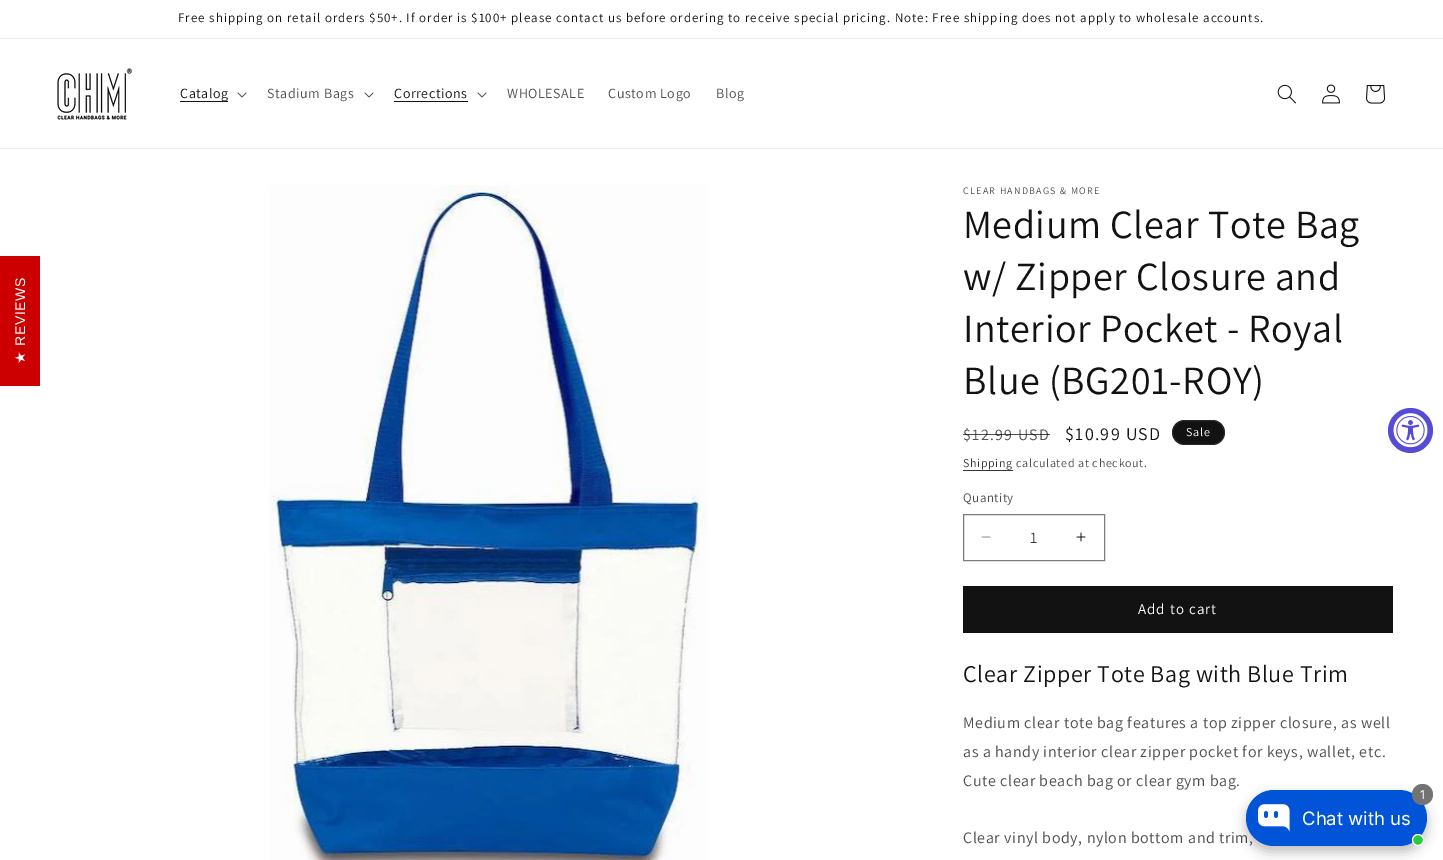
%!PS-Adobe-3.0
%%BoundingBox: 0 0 1443 860
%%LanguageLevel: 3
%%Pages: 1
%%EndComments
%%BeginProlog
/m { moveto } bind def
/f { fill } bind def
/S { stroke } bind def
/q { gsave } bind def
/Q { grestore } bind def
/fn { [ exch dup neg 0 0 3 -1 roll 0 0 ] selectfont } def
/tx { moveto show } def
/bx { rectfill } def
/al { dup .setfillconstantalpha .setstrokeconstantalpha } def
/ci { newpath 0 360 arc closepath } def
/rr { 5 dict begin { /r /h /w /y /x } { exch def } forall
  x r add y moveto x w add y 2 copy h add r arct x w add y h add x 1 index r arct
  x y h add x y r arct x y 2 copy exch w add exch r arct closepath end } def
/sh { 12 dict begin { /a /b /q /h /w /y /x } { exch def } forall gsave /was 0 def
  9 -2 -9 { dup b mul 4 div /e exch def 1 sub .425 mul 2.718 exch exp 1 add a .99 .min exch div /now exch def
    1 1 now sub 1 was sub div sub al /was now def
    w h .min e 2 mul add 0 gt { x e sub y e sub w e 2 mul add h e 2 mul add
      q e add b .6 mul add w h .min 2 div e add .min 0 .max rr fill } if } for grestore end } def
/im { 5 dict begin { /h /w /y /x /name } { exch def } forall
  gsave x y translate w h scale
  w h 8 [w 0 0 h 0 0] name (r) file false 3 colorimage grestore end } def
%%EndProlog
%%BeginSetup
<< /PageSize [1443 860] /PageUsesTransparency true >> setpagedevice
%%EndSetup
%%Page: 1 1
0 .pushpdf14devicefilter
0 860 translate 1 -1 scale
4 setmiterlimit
1 setgray
0 0 1443 860 bx
0.925 setgray
0 38 1443 1 bx
/Assistant-Regular 13 fn
0.071 setgray
178 22 m 1 0 (Free shipping on retail orders $50+. If order is $100+ please contact us before ordering to receive special pricing. Note: Free shipping does not apply to wholesale accounts.) ashow
0.925 setgray
0 148 1443 1 bx
(image0.raw) 57 68 76 52 im
0.071 setgray
180 101 48 1 bx
/Assistant-Regular 14 fn
180 98 m 0.6 0 (Catalog) ashow
(image1.raw) 237 92 10 6 im
0.302 setgray
267 98 m 0.6 0 (Stadium Bags) ashow
(image1.raw) 364 92 10 6 im
0.071 setgray
394 98 m 0.6 0 (Corrections) ashow
394 101 74 1 bx
(image1.raw) 477 92 10 6 im
0.302 setgray
507 98 m 0.6 0 (WHOLESALE) ashow
608 98 m 0.6 0 (Custom Logo) ashow
716 98 m 0.6 0 (Blog) ashow
(image2.raw) 1277 84 19 20 im
(image3.raw) 1322 84 18 20 im
(image4.raw) 1366 85 20 19 im
0.8 0 0 setrgbcolor
0 256 40 130 bx
/LiberationSans-Regular 14 fn
1 setgray
q 25 346 translate -90 rotate 0 0 m 0.6 0 (REVIEWS) ashow Q
/DejaVuSans-Regular 14 fn
q 25 364 translate -90 rotate 0 0 m 0.6 0 (★) ashow Q
(image5.raw) 269 185 439 675 im
/Assistant-Regular 10 fn
0.302 setgray
963 194 m 1.3 0 (CLEAR HANDBAGS & MORE) ashow
/Assistant-Regular 40 fn
0.071 setgray
963 238 m 0.6 0 (Medium Clear Tote Bag) ashow
963 290 m 0.6 0 (w/ Zipper Closure and) ashow
963 342 m 0.6 0 (Interior Pocket - Royal) ashow
963 394 m 0.6 0 (Blue \(BG201-ROY\)) ashow
/Assistant-Regular 16 fn
0.302 setgray
963 440 m 1.3 0 ($12.99 USD) ashow
0.75 al
0.071 setgray
963 434 87 1 bx
/Assistant-Regular 18 fn
1 al
1065 440 m 1.3 0 ($10.99 USD) ashow
1172 420 53 25 12.5 rr f
0.1 al
1 setgray
1172.5 420.5 52 24 12 rr S
/Assistant-Regular 12 fn
1 al
1186 436 m 1 0 (Sale) ashow
0.212 setgray
963 467 m 0.7 0 (Shipping) ashow
963 470 50 1 bx
0.302 setgray
1016 467 m 0.7 0 (calculated at checkout.) ashow
/Assistant-Regular 13 fn
963 502 m 0.5 0 (Quantity) ashow
(image6.raw) 981 536 10 2 im
(image7.raw) 1076 532 10 10 im
0.49 setgray
963.5 514.5 141 46 rectstroke
/Assistant-Regular 16 fn
0.212 setgray
(1) 1030 543 tx
0.071 setgray
963 586 430 47 bx
/Assistant-Regular 15 fn
1 setgray
1138 614 m 1 0 (Add to cart) ashow
/Assistant-Regular 24 fn
0.071 setgray
963 682 m 0.6 0 (Clear Zipper Tote Bag with Blue Trim) ashow
/Assistant-Regular 16 fn
0.302 setgray
963 728 m 0.6 0 (Medium clear tote bag features a top zipper closure, as well) ashow
963 757 m 0.6 0 (as a handy interior clear zipper pocket for keys, wallet, etc.) ashow
963 786 m 0.6 0 (Cute clear beach bag or clear gym bag.) ashow
963 843 m 0.6 0 (Clear vinyl body, nylon bottom and trim,) ashow
0.341 0.298 0.835 setrgbcolor
1410.5 430.5 22.5 ci f
(image8.raw) 1393 413 35 35 im
0 setgray
1246 796 181 56 28 6 0.25 sh
0.004 0.329 0.843 setrgbcolor
1246 790 181 56 28 rr f
0.451 setgray
1422.5 794.5 10.5 ci f
/Inter-Regular 12 fn
1 setgray
1420 799 m 0.6 0 (1) ashow
(image9.raw) 1258 804 32 28 im
/Inter-Regular 18.5 fn
(Chat with us) 1302 825 tx
0.153 0.792 0.251 setrgbcolor
1418 840 5.5 ci q f Q
1 setgray
S
.poppdf14devicefilter showpage
%%EOF
